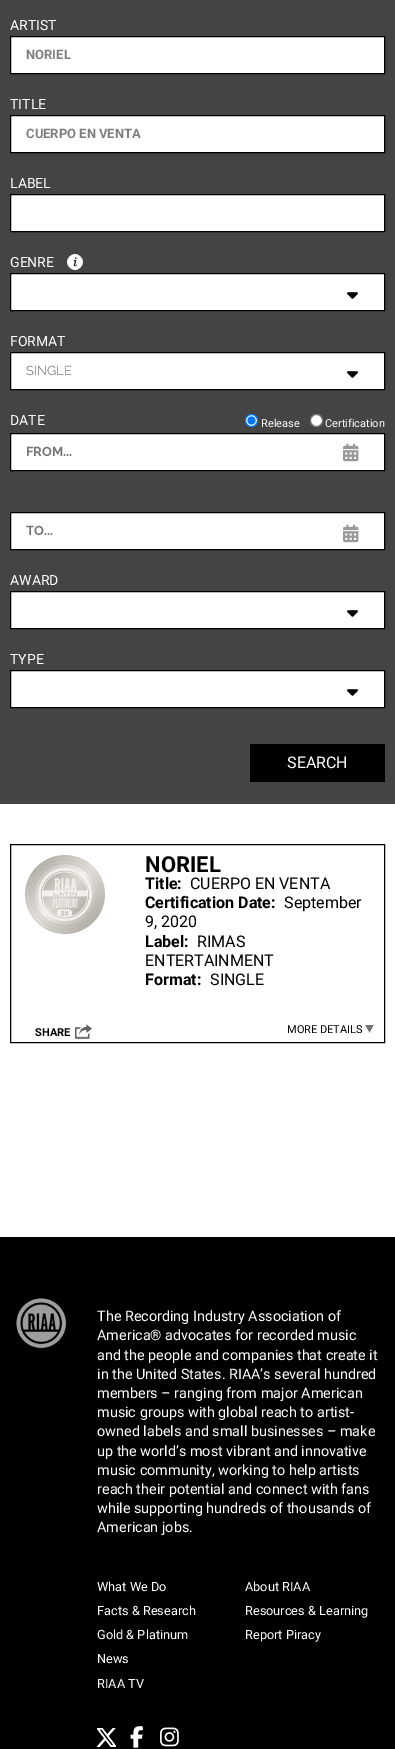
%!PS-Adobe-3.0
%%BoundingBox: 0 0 395 1749
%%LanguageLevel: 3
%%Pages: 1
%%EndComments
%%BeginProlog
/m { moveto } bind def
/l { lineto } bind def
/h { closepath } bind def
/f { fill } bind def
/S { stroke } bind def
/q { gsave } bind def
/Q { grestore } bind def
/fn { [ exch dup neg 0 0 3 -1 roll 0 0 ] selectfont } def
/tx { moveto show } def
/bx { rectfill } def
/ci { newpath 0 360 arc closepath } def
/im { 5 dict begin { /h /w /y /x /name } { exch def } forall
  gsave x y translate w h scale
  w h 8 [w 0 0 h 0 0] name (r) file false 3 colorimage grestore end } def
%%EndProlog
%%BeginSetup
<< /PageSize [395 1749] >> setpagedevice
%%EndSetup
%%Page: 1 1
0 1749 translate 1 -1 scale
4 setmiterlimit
1 setgray
0 0 395 1749 bx
0.271 0.267 0.267 setrgbcolor
0 0 395 804 bx
/Roboto-Regular 14 fn
1 setgray
(ARTIST) 10 30 tx
10.5 36.5 m 384.5 36.5 l 384.5 73.5 l 10.5 73.5 l h q f Q
0 setgray
S
/Roboto-Bold 13 fn
0.498 setgray
(NORIEL) 26 59 tx
/Roboto-Regular 14 fn
1 setgray
(TITLE) 10 109 tx
10.5 115.5 m 384.5 115.5 l 384.5 152.5 l 10.5 152.5 l h q f Q
0 setgray
S
/Roboto-Bold 13 fn
0.498 setgray
(CUERPO EN VENTA) 26 138 tx
/Roboto-Regular 14 fn
1 setgray
(LABEL) 10 188 tx
10.5 194.5 m 384.5 194.5 l 384.5 231.5 l 10.5 231.5 l h q f Q
0 setgray
S
1 setgray
(GENRE) 10 267 tx
(image0.raw) 67 254 16 16 im
10.5 273.5 m 384.5 273.5 l 384.5 310.5 l 10.5 310.5 l h q f Q
0 setgray
S
(image1.raw) 347 292 11 7 im
1 setgray
(FORMAT) 10 346 tx
10.5 352.5 m 384.5 352.5 l 384.5 389.5 l 10.5 389.5 l h q f Q
0 setgray
S
/Raleway-Regular 13 fn
0.498 setgray
(SINGLE) 26 375 tx
(image1.raw) 347 371 11 7 im
/Roboto-Regular 14 fn
1 setgray
(DATE) 10 425 tx
251.5 420.5 6 ci q f Q
0 0.459 1 setrgbcolor
S
251.5 420.5 4 ci f
/Roboto-Regular 11 fn
1 setgray
(Release) 261 427 tx
316.5 420.5 6 ci q f Q
0.463 setgray
S
1 setgray
(Certification) 325 427 tx
10.5 433.5 m 384.5 433.5 l 384.5 470.5 l 10.5 470.5 l h q f Q
0 setgray
S
/Raleway-Bold 13 fn
0.459 setgray
(FROM...) 26 456 tx
(image2.raw) 343 443 16 19 im
1 setgray
10.5 512.5 m 384.5 512.5 l 384.5 549.5 l 10.5 549.5 l h q f Q
0 setgray
S
0.459 setgray
(TO...) 26 535 tx
(image2.raw) 343 524 16 19 im
/Roboto-Regular 14 fn
1 setgray
(AWARD) 10 585 tx
10.5 591.5 m 384.5 591.5 l 384.5 628.5 l 10.5 628.5 l h q f Q
0 setgray
S
(image1.raw) 347 610 11 7 im
1 setgray
(TYPE) 10 664 tx
10.5 670.5 m 384.5 670.5 l 384.5 707.5 l 10.5 707.5 l h q f Q
0 setgray
S
(image1.raw) 347 689 11 7 im
250 744 135 38 bx
/Roboto-Regular 16 fn
1 setgray
(SEARCH) 287 768 tx
0 setgray
10.5 844.5 374 198 rectstroke
(image3.raw) 25 855 80 79 im
/Roboto-Bold 22 fn
(NORIEL) 145 872 tx
/Roboto-Bold 16 fn
(Title:) 145 889 tx
/Roboto-Regular 16 fn
(CUERPO EN VENTA) 190 889 tx
/Roboto-Bold 16 fn
(Certification Date:) 145 908 tx
/Roboto-Regular 16 fn
(September) 284 908 tx
(9, 2020) 145 927 tx
/Roboto-Bold 16 fn
(Label:) 145 947 tx
/Roboto-Regular 16 fn
(RIMAS) 197 947 tx
(ENTERTAINMENT) 145 966 tx
/Roboto-Bold 16 fn
(Format:) 145 985 tx
/Roboto-Regular 16 fn
(SINGLE) 210 985 tx
/Roboto-Bold 11 fn
(SHARE) 35 1036 tx
(image4.raw) 75 1024 17 15 im
/Roboto-Regular 11 fn
(MORE DETAILS) 287 1033 tx
(image5.raw) 365 1025 9 8 im
0 1237 395 512 bx
(image6.raw) 16 1298 51 51 im
/Roboto-Regular 14.4 fn
1 setgray
(The Recording Industry Association of) 97 1321 tx
(America® advocates for recorded music) 97 1340 tx
(and the people and companies that create it) 97 1360 tx
(in the United States. RIAA’s several hundred) 97 1379 tx
(members – ranging from major American) 97 1398 tx
(music groups with global reach to artist-) 97 1417 tx
(owned labels and small businesses – make) 97 1436 tx
(up the world’s most vibrant and innovative) 97 1456 tx
(music community, working to help artists) 97 1475 tx
(reach their potential and connect with fans) 97 1494 tx
(while supporting hundreds of thousands of) 97 1513 tx
(American jobs.) 97 1532 tx
/Roboto-Regular 12.75 fn
(What We Do) 97 1591 tx
(Facts & Research) 97 1615 tx
(Gold & Platinum) 97 1639 tx
(News) 97 1663 tx
(RIAA TV) 97 1688 tx
(image7.raw) 97 1728 19 19 im
(image8.raw) 130 1726 13 22 im
(image9.raw) 160 1727 19 20 im
(About RIAA) 245 1591 tx
(Resources & Learning) 245 1615 tx
(Report Piracy) 245 1639 tx
showpage
%%EOF
